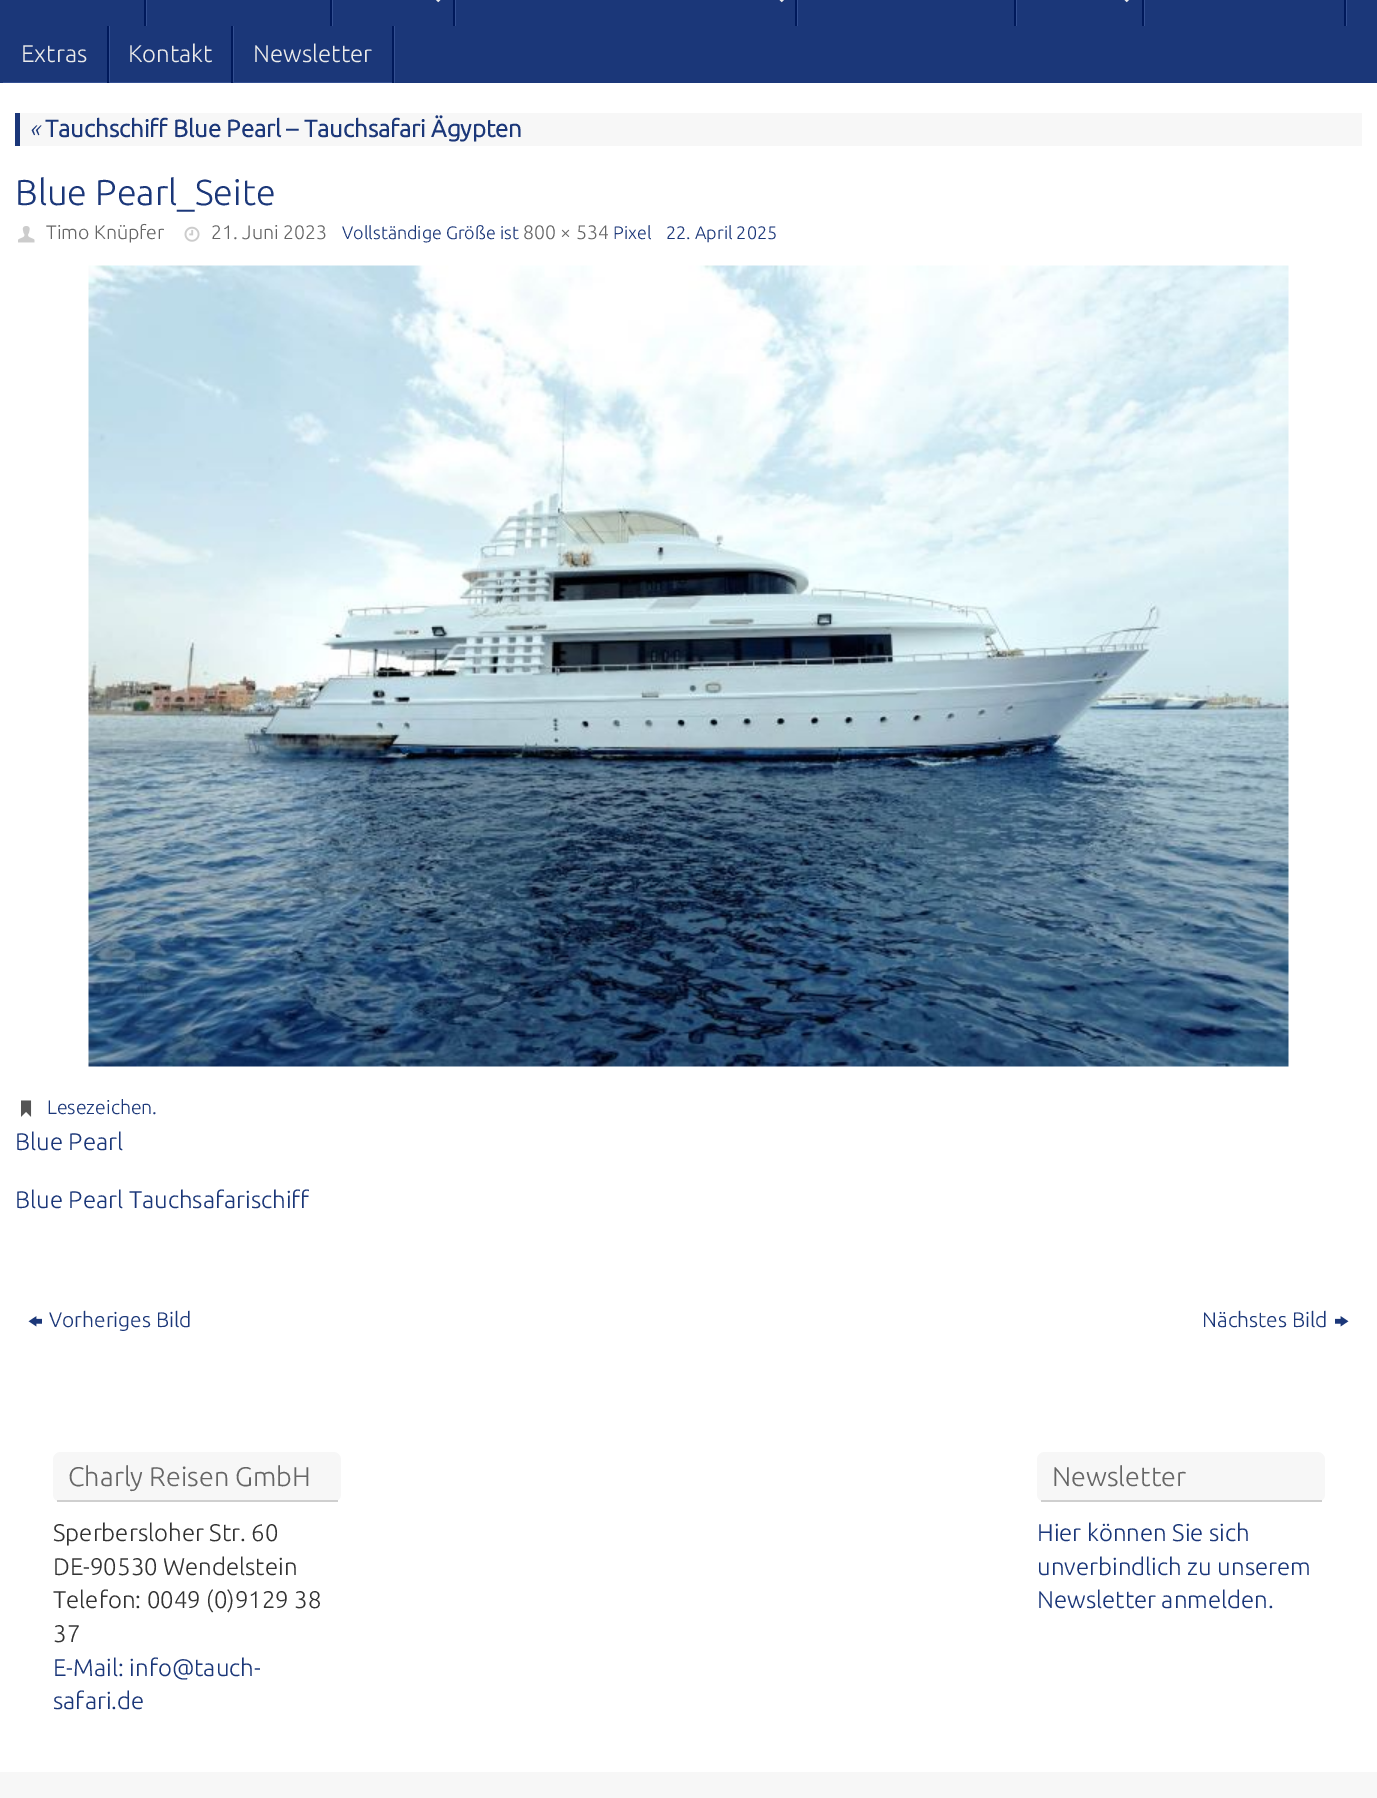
%!PS-Adobe-3.0
%%BoundingBox: 0 0 1377 1798
%%LanguageLevel: 3
%%Pages: 1
%%EndComments
%%BeginProlog
/m { moveto } bind def
/l { lineto } bind def
/h { closepath } bind def
/f { fill } bind def
/fn { [ exch dup neg 0 0 3 -1 roll 0 0 ] selectfont } def
/tx { moveto show } def
/bx { rectfill } def
/rr { 5 dict begin { /r /h /w /y /x } { exch def } forall
  x r add y moveto x w add y 2 copy h add r arct x w add y h add x 1 index r arct
  x y h add x y r arct x y 2 copy exch w add exch r arct closepath end } def
/im { 5 dict begin { /h /w /y /x /name } { exch def } forall
  gsave x y translate w h scale
  w h 8 [w 0 0 h 0 0] name (r) file false 3 colorimage grestore end } def
%%EndProlog
%%BeginSetup
<< /PageSize [1377 1798] >> setpagedevice
%%EndSetup
%%Page: 1 1
0 1798 translate 1 -1 scale
4 setmiterlimit
0.106 0.216 0.475 setrgbcolor
0 0 1377 1798 bx
0.2 0.31 0.569 setrgbcolor
3 26 m 147 26 l 147 -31 l 146 -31 l 146 26 l h f
0 0.098 0.357 setrgbcolor
144 0 2 26 bx
0.2 0.31 0.569 setrgbcolor
147 26 m 333 26 l 333 -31 l 332 -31 l 332 26 l h f
0 0.098 0.357 setrgbcolor
330 0 2 26 bx
0.2 0.31 0.569 setrgbcolor
333 26 m 456 26 l 456 -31 l 454 -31 l 454 26 l h f
0 0.098 0.357 setrgbcolor
453 0 2 26 bx
(image0.raw) 436 0 5 3 im
0.2 0.31 0.569 setrgbcolor
456 26 m 798 26 l 798 -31 l 796 -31 l 796 26 l h f
0 0.098 0.357 setrgbcolor
795 0 2 26 bx
(image1.raw) 779 0 5 3 im
0.2 0.31 0.569 setrgbcolor
798 26 m 1017 26 l 1017 -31 l 1016 -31 l 1016 26 l h f
0 0.098 0.357 setrgbcolor
1014 0 2 26 bx
0.2 0.31 0.569 setrgbcolor
1017 26 m 1145 26 l 1145 -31 l 1143 -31 l 1143 26 l h f
0 0.098 0.357 setrgbcolor
1142 0 2 26 bx
(image1.raw) 1124 0 5 3 im
0.2 0.31 0.569 setrgbcolor
1145 26 m 1347 26 l 1347 -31 l 1346 -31 l 1346 26 l h f
0 0.098 0.357 setrgbcolor
1344 0 2 26 bx
0.2 0.31 0.569 setrgbcolor
3 82 m 3 83 l 110 83 l 110 26 l 108 26 l 108 82 l h f
0 0.098 0.357 setrgbcolor
107 26 2 57 bx
/Ubuntu-Light 24 fn
0.918 setgray
(Extras) 21 62 tx
0.2 0.31 0.569 setrgbcolor
110 82 m 110 83 l 234 83 l 234 26 l 232 26 l 232 82 l h f
0 0.098 0.357 setrgbcolor
231 26 2 57 bx
0.918 setgray
(Kontakt) 128 62 tx
0.2 0.31 0.569 setrgbcolor
234 82 m 234 83 l 395 83 l 395 26 l 393 26 l 393 82 l h f
0 0.098 0.357 setrgbcolor
392 26 2 57 bx
0.918 setgray
(Newsletter) 253 62 tx
1 setgray
0 83 1377 1689 bx
0.969 setgray
20 113 1342 33 bx
0.106 0.216 0.475 setrgbcolor
15 113 5 33 bx
/Ubuntu-LightItalic 24 fn
(«) 29 137 tx
/Ubuntu-Bold 24 fn
(Tauchschiff Blue Pearl – Tauchsafari Ägypten) 45 137 tx
/Ubuntu-Light 36 fn
(Blue Pearl_Seite) 15 205 tx
(image2.raw) 18 226 17 17 im
/Ubuntu-Light 19.5 fn
0.4 setgray
(Timo Knüpfer) 46 239 tx
(image3.raw) 184 226 16 16 im
(21. Juni 2023) 211 239 tx
/Ubuntu-Light 18 fn
0.106 0.216 0.475 setrgbcolor
(Vollständige Größe ist) 342 239 tx
/Ubuntu-Light 19.5 fn
0.4 setgray
(800 × 534) 523 239 tx
/Ubuntu-Light 18 fn
0.106 0.216 0.475 setrgbcolor
(Pixel) 613 239 tx
(22. April 2025) 666 239 tx
(image4.raw) 88 265 1201 802 im
(image5.raw) 21 1100 11 17 im
/Ubuntu-Light 19.5 fn
(Lesezeichen.) 47 1114 tx
/Ubuntu-Light 24 fn
(Blue Pearl) 15 1150 tx
(Blue Pearl Tauchsafarischiff) 15 1208 tx
(image6.raw) 28 1316 14 11 im
/Ubuntu-Light 21 fn
(Vorheriges Bild) 49 1327 tx
(Nächstes Bild) 1202 1327 tx
(image7.raw) 1335 1316 14 11 im
0.969 setgray
53 1452 288 50 8 rr f
0.812 setgray
57 1500 281 2 bx
/Ubuntu-Light 27 fn
0.4 setgray
(Charly Reisen GmbH) 68 1486 tx
/Ubuntu-Light 24 fn
0.2 setgray
(Sperbersloher Str. 60) 53 1541 tx
(DE-90530 Wendelstein) 53 1575 tx
(Telefon: 0049 \(0\)9129 38) 53 1608 tx
(37) 53 1642 tx
0.106 0.216 0.475 setrgbcolor
(E-Mail: info@tauch-) 53 1676 tx
(safari.de) 53 1709 tx
0.969 setgray
1037 1452 288 50 8 rr f
0.812 setgray
1041 1500 281 2 bx
/Ubuntu-Light 27 fn
0.4 setgray
(Newsletter) 1052 1486 tx
/Ubuntu-Light 24 fn
0.106 0.216 0.475 setrgbcolor
(Hier können Sie sich) 1037 1541 tx
(unverbindlich zu unserem) 1037 1575 tx
(Newsletter anmelden.) 1037 1608 tx
0.969 setgray
0 1772 1377 26 bx
showpage
%%EOF
